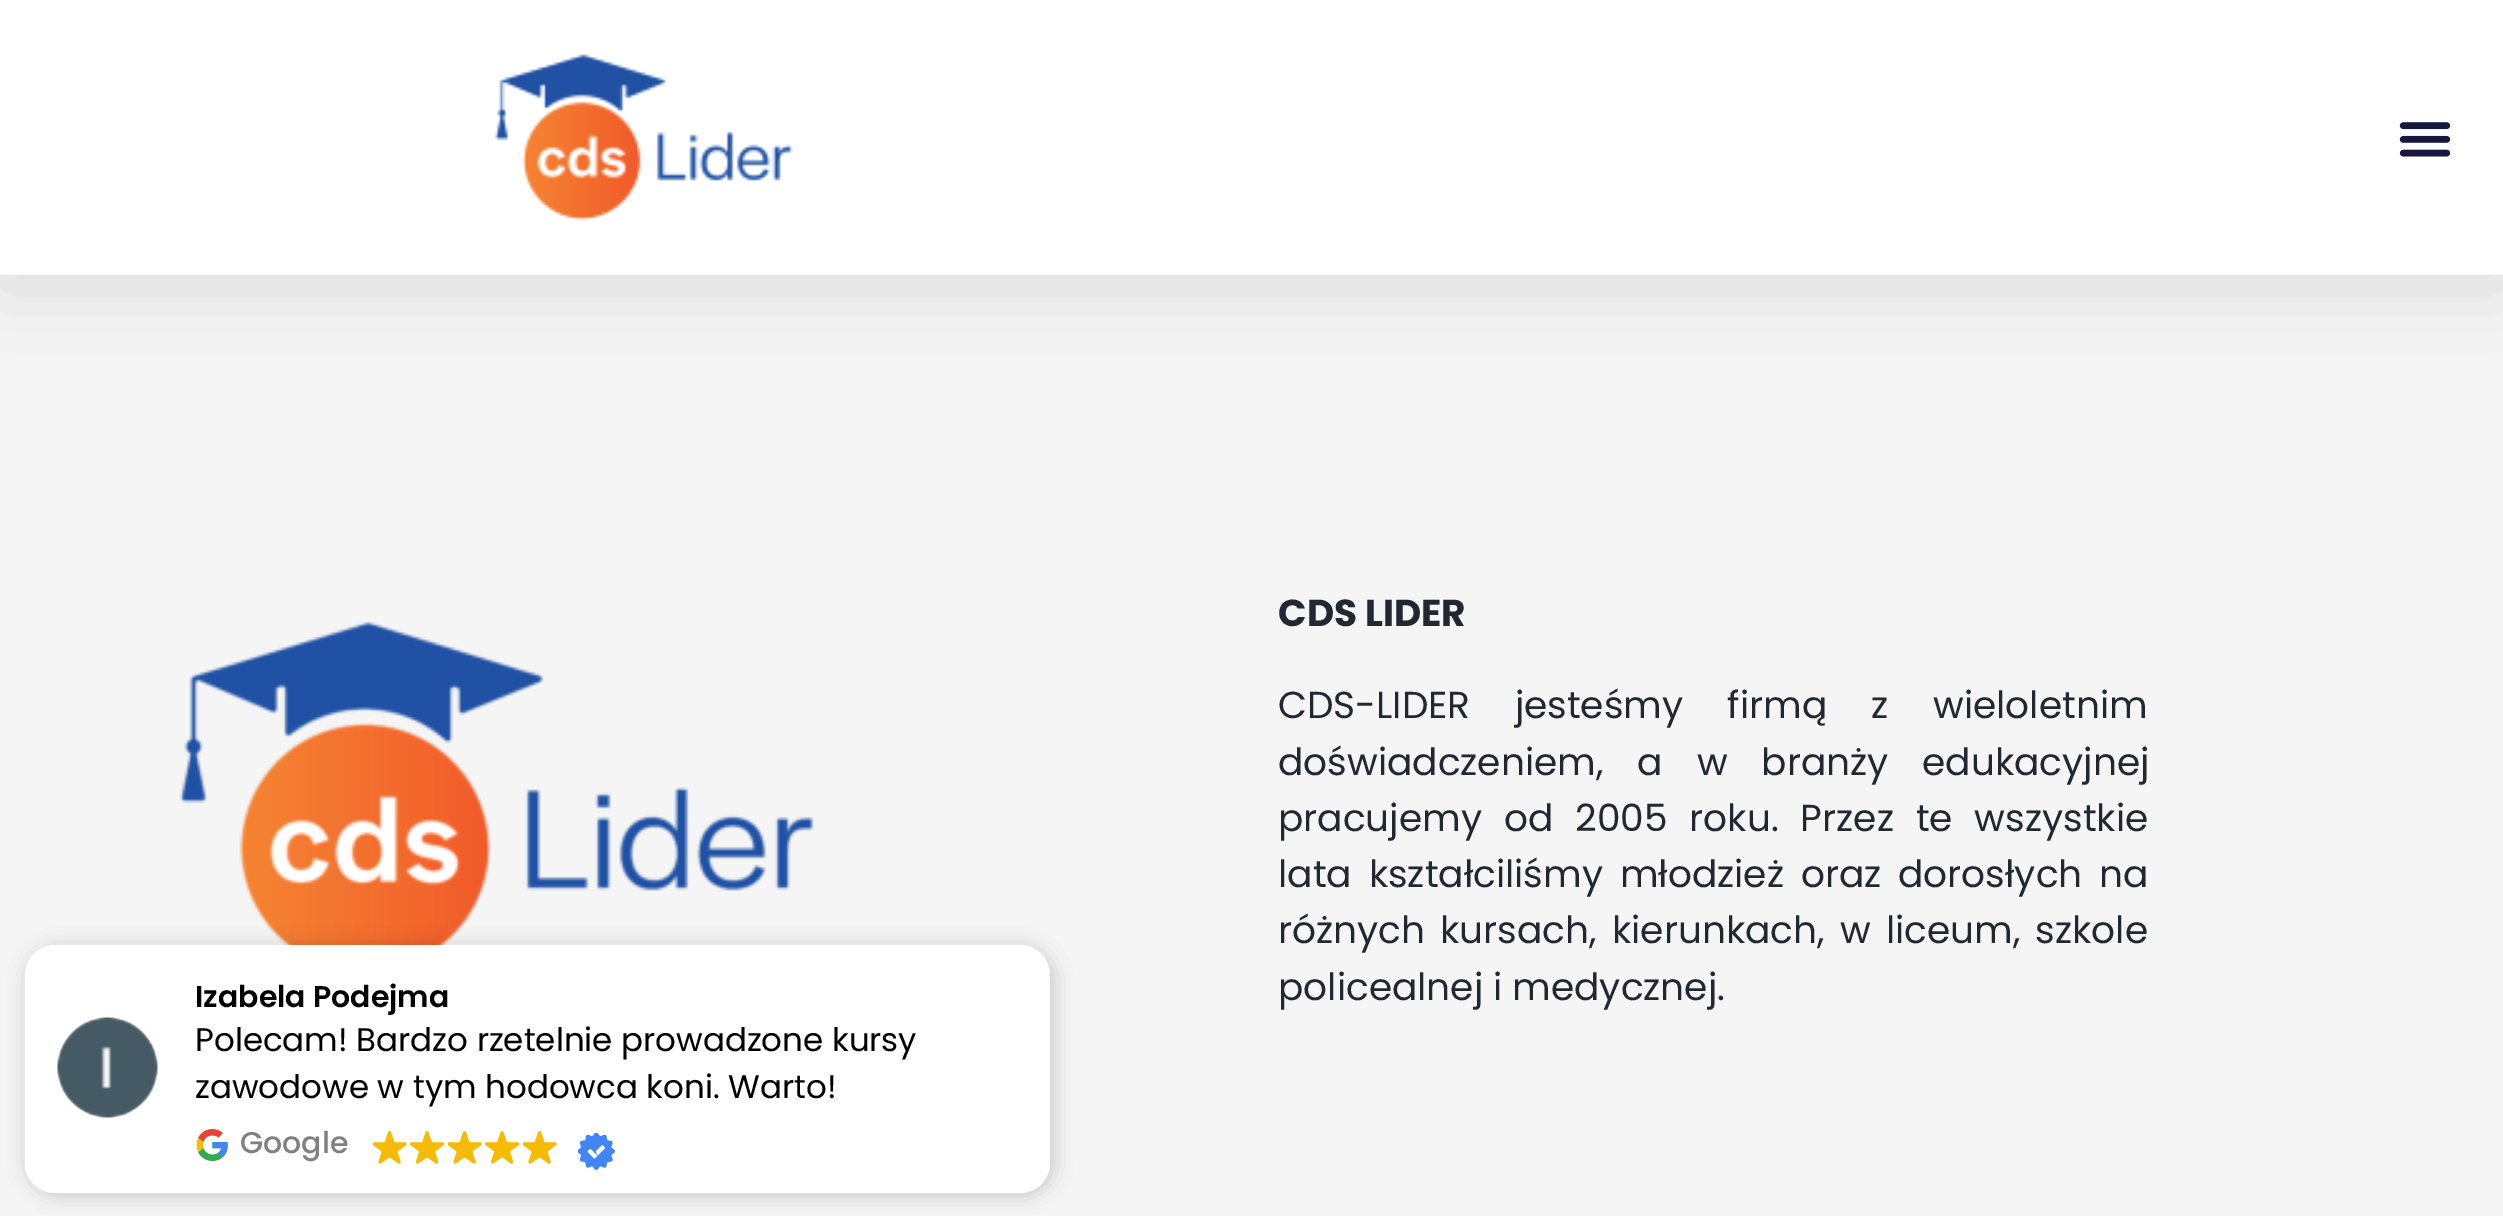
%!PS-Adobe-3.0
%%BoundingBox: 0 0 2503 1216
%%LanguageLevel: 3
%%Pages: 1
%%EndComments
%%BeginProlog
/m { moveto } bind def
/f { fill } bind def
/fn { [ exch dup neg 0 0 3 -1 roll 0 0 ] selectfont } def
/tx { moveto show } def
/bx { rectfill } def
/al { dup .setfillconstantalpha .setstrokeconstantalpha } def
/rr { 5 dict begin { /r /h /w /y /x } { exch def } forall
  x r add y moveto x w add y 2 copy h add r arct x w add y h add x 1 index r arct
  x y h add x y r arct x y 2 copy exch w add exch r arct closepath end } def
/sh { 12 dict begin { /a /b /q /h /w /y /x } { exch def } forall gsave /was 0 def
  9 -2 -9 { dup b mul 4 div /e exch def 1 sub .425 mul 2.718 exch exp 1 add a .99 .min exch div /now exch def
    1 1 now sub 1 was sub div sub al /was now def
    w h .min e 2 mul add 0 gt { x e sub y e sub w e 2 mul add h e 2 mul add
      q e add b .6 mul add w h .min 2 div e add .min 0 .max rr fill } if } for grestore end } def
/im { 5 dict begin { /h /w /y /x /name } { exch def } forall
  gsave x y translate w h scale
  w h 8 [w 0 0 h 0 0] name (r) file false 3 colorimage grestore end } def
%%EndProlog
%%BeginSetup
<< /PageSize [2503 1216] /PageUsesTransparency true >> setpagedevice
%%EndSetup
%%Page: 1 1
0 .pushpdf14devicefilter
0 1216 translate 1 -1 scale
4 setmiterlimit
0.961 setgray
0 0 2503 1216 bx
0 setgray
0 13 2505 275 0 37.5 0.1 sh
1 setgray
0 0 2503 275 bx
(image0.raw) 494 54 299 167 im
(image1.raw) 2399 122 52 35 im
(image2.raw) 179 621 635 324 im
/Poppins-Bold 37.5 fn
0.129 0.157 0.196 setrgbcolor
(CDS LIDER) 1278 626 tx
/Poppins-Regular 37.5 fn
1278 718 m 34.5 0 32 (CDS-LIDER jesteśmy firmą z wieloletnim) widthshow
1278 775 m 24 0 32 (doświadczeniem, a w branży edukacyjnej) widthshow
1278 831 m 12 0 32 (pracujemy od 2005 roku. Przez te wszystkie) widthshow
1278 887 m 7 0 32 (lata kształciliśmy młodzież oraz dorosłych na) widthshow
1278 943 m 5.25 0 32 (różnych kursach, kierunkach, w liceum, szkole) widthshow
(policealnej i medycznej.) 1278 1000 tx
0 setgray
28 948 1025 247 30 10 0.2 sh
1 setgray
25 945 1025 248 30 rr f
(image3.raw) 57 1017 101 101 im
/Poppins-SemiBold 30 fn
0 setgray
(Izabela Podejma) 195 1007 tx
/Poppins-Regular 32.5 fn
(Polecam! Bardzo rzetelnie prowadzone kursy) 195 1051 tx
(zawodowe w tym hodowca koni. Warto!) 195 1098 tx
(image4.raw) 196 1129 32 32 im
/Poppins-Medium 30 fn
0.502 setgray
(Google) 240 1153 tx
(image5.raw) 373 1131 34 33 im
(image6.raw) 410 1131 35 33 im
(image5.raw) 448 1131 34 33 im
(image6.raw) 485 1131 35 33 im
(image5.raw) 523 1131 34 33 im
(image7.raw) 578 1133 37 37 im
.poppdf14devicefilter showpage
%%EOF
